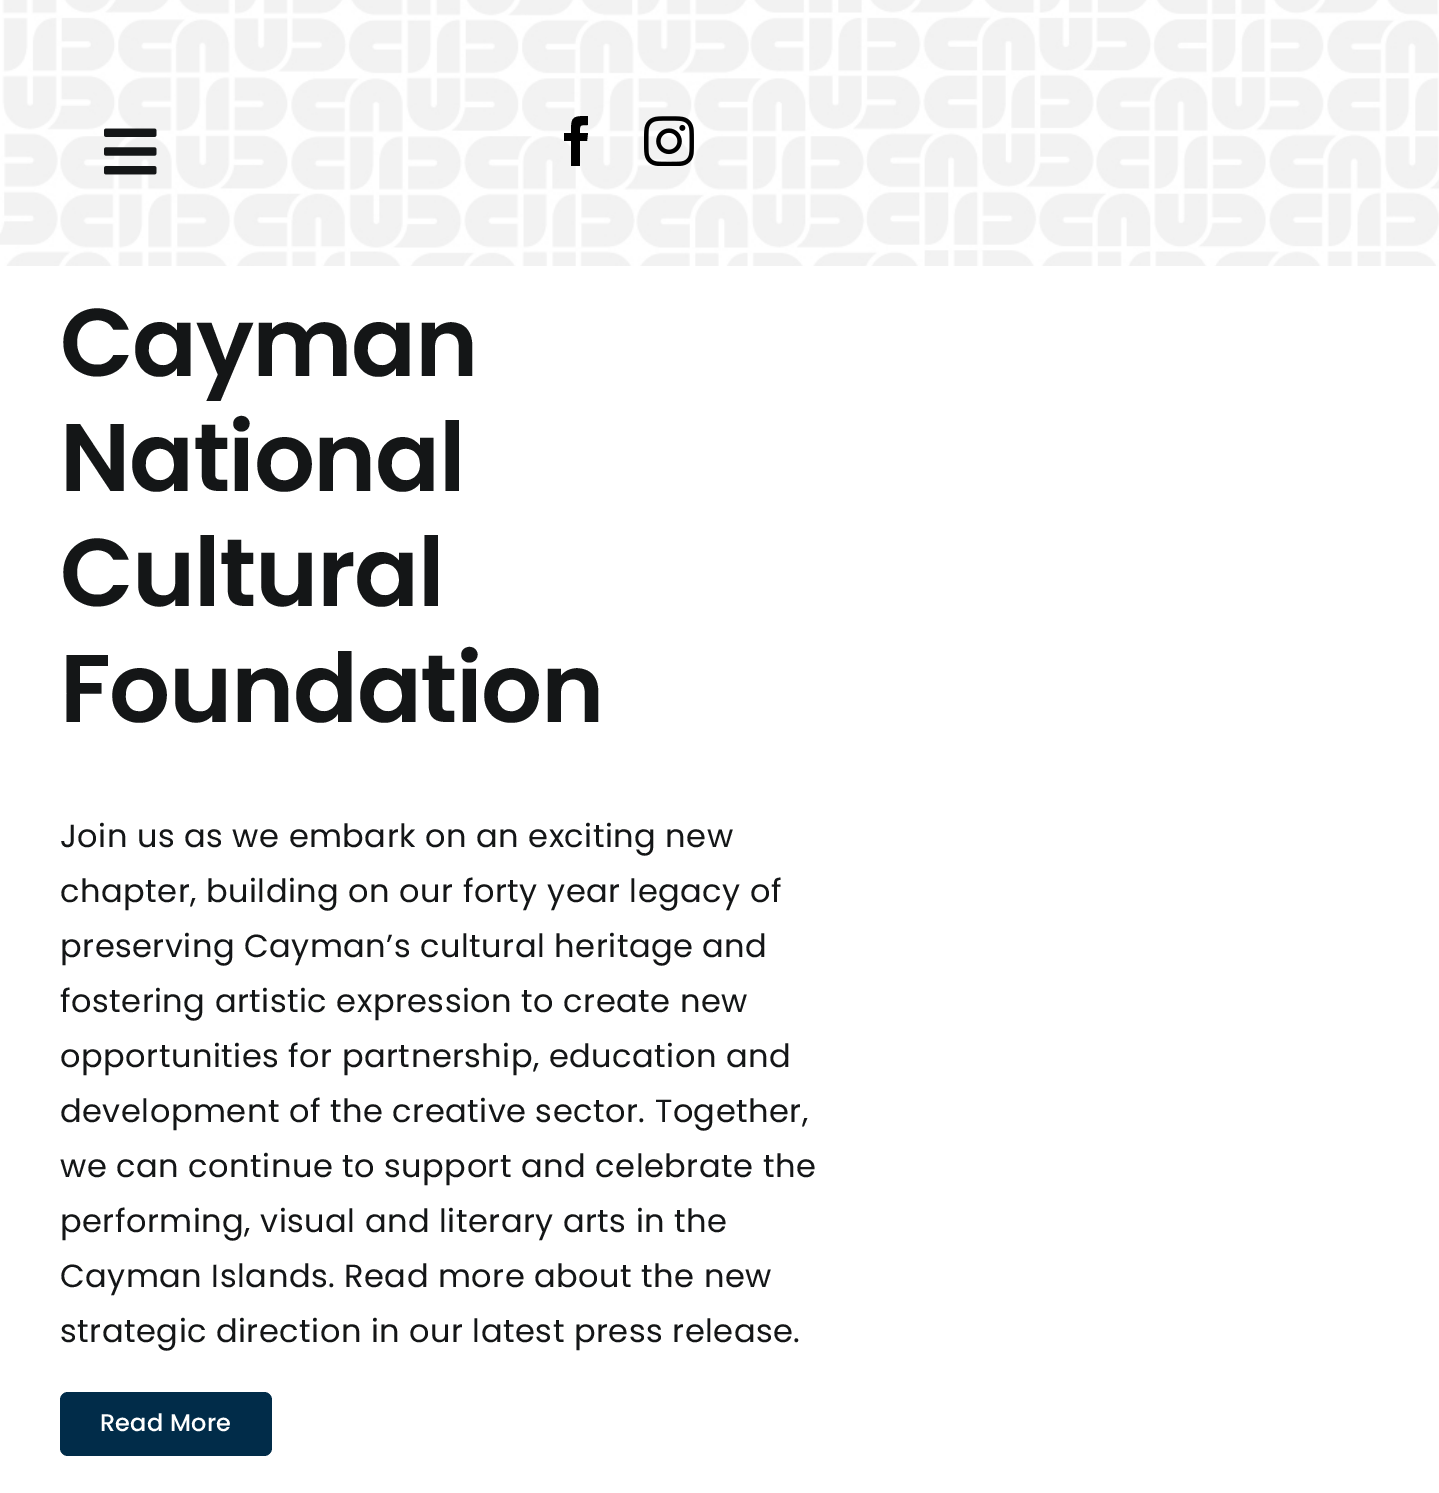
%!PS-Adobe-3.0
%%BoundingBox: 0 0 1439 1493
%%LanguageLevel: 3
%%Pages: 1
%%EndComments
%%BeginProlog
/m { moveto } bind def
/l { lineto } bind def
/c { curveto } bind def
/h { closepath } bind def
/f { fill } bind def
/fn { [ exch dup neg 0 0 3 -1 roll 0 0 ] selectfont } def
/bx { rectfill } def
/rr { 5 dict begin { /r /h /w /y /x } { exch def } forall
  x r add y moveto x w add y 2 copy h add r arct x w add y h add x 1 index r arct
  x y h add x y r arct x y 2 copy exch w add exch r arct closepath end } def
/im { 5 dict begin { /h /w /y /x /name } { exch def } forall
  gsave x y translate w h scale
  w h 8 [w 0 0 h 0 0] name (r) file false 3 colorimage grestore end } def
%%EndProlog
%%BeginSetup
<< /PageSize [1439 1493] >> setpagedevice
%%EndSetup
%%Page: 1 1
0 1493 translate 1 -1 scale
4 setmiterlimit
1 setgray
0 0 1439 1493 bx
(image0.raw) 0 0 1439 266 im
(image1.raw) 104 128 53 47 im
0 setgray
580 166 m 571 166 l 571 141 l 564 141 l 564 133 l 571 133 l 571 117 572 116 588 116 c 588 125 l 579 125 580 125 580 133 c 588 133 l 587 141 l 580 141 l h f
(image2.raw) 644 116 50 50 im
/Poppins-SemiBold 96 fn
0.078 0.086 0.09 setrgbcolor
60 376 m -1.5 0 (Cayman) ashow
60 491 m -1.5 0 (National) ashow
60 606 m -1.5 0 (Cultural) ashow
60 722 m -1.5 0 (Foundation) ashow
/Poppins-Regular 32 fn
60 847 m 0.5 0 (Join us as we embark on an exciting new) ashow
60 902 m 0.5 0 (chapter, building on our forty year legacy of) ashow
60 957 m 0.5 0 (preserving Cayman’s cultural heritage and) ashow
60 1012 m 0.5 0 (fostering artistic expression to create new) ashow
60 1067 m 0.5 0 (opportunities for partnership, education and) ashow
60 1122 m 0.5 0 (development of the creative sector. Together,) ashow
60 1177 m 0.5 0 (we can continue to support and celebrate the) ashow
60 1232 m 0.5 0 (performing, visual and literary arts in the) ashow
60 1287 m 0.5 0 (Cayman Islands. Read more about the new) ashow
60 1342 m 0.5 0 (strategic direction in our latest press release.) ashow
0.004 0.173 0.286 setrgbcolor
60 1392 212 64 8 rr f
/Poppins-Medium 24 fn
1 setgray
100 1431 m 0.25 0 (Read More) ashow
showpage
%%EOF
